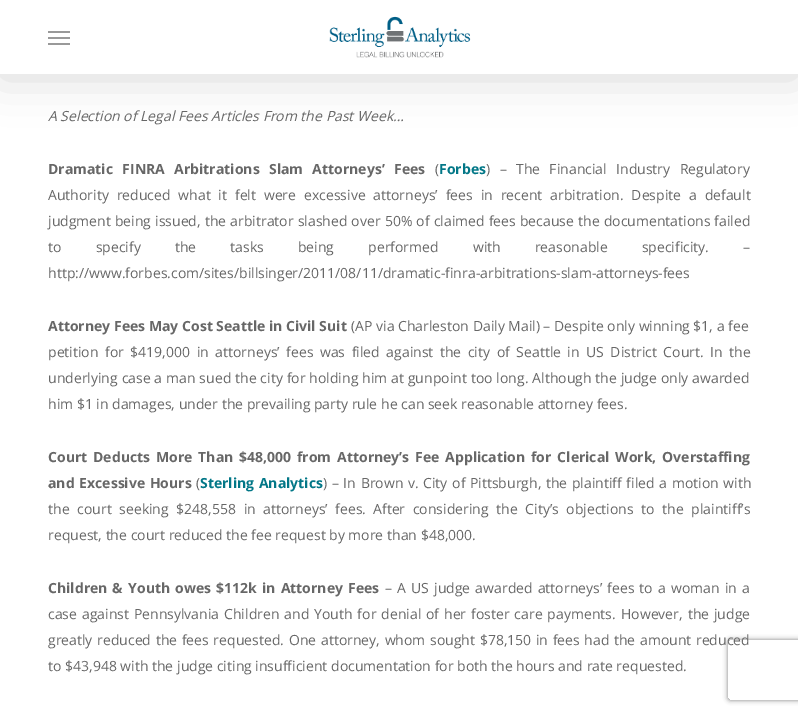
%!PS-Adobe-3.0
%%BoundingBox: 0 0 798 714
%%LanguageLevel: 3
%%Pages: 1
%%EndComments
%%BeginProlog
/m { moveto } bind def
/l { lineto } bind def
/c { curveto } bind def
/h { closepath } bind def
/q { gsave } bind def
/Q { grestore } bind def
/fn { [ exch dup neg 0 0 3 -1 roll 0 0 ] selectfont } def
/tx { moveto show } def
/bx { rectfill } def
/al { dup .setfillconstantalpha .setstrokeconstantalpha } def
/rr { 5 dict begin { /r /h /w /y /x } { exch def } forall
  x r add y moveto x w add y 2 copy h add r arct x w add y h add x 1 index r arct
  x y h add x y r arct x y 2 copy exch w add exch r arct closepath end } def
/sh { 12 dict begin { /a /b /q /h /w /y /x } { exch def } forall gsave /was 0 def
  9 -2 -9 { dup b mul 4 div /e exch def 1 sub .425 mul 2.718 exch exp 1 add a .99 .min exch div /now exch def
    1 1 now sub 1 was sub div sub al /was now def
    w h .min e 2 mul add 0 gt { x e sub y e sub w e 2 mul add h e 2 mul add
      q e add b .6 mul add w h .min 2 div e add .min 0 .max rr fill } if } for grestore end } def
/im { 5 dict begin { /h /w /y /x /name } { exch def } forall
  gsave x y translate w h scale
  w h 8 [w 0 0 h 0 0] name (r) file false 3 colorimage grestore end } def
%%EndProlog
%%BeginSetup
<< /PageSize [798 714] /PageUsesTransparency true >> setpagedevice
%%EndSetup
%%Page: 1 1
0 .pushpdf14devicefilter
0 714 translate 1 -1 scale
4 setmiterlimit
1 setgray
0 0 798 714 bx
0 setgray
0 3 798 74 0 22.5 0.15 sh
1 setgray
0 0 798 74 bx
0.6 setgray
48 31 22 2 bx
48 43 22 2 bx
48 37 22 2 bx
(image0.raw) 329 16 142 42 im
/OpenSans-Italic 14 fn
0.404 setgray
(A Selection of Legal Fees Articles From the Past Week…) 48 121 tx
/OpenSans-Bold 14 fn
48 174 m 5.75 0 32 (Dramatic FINRA Arbitrations Slam Attorneys’ Fees) widthshow
/OpenSans-Regular 14 fn
(\() 435 174 tx
/OpenSans-Bold 14 fn
0.008 0.467 0.529 setrgbcolor
(Forbes) 439 174 tx
/OpenSans-Regular 14 fn
0.404 setgray
486 174 m 5.75 0 32 (\) – The Financial Industry Regulatory) widthshow
48 200 m 4.25 0 32 (Authority reduced what it felt were excessive attorneys’ fees in recent arbitration. Despite a default) widthshow
48 226 m 0.5 0 32 (judgment being issued, the arbitrator slashed over 50% of claimed fees because the documentations failed) widthshow
48 252 m 30.5 0 32 (to specify the tasks being performed with reasonable specificity. –) widthshow
(http://www.forbes.com/sites/billsinger/2011/08/11/dramatic-finra-arbitrations-slam-attorneys-fees) 48 278 tx
/OpenSans-Bold 14 fn
(Attorney Fees May Cost Seattle in Civil Suit) 48 331 tx
/OpenSans-Regular 14 fn
(\(AP via Charleston Daily Mail\) – Despite only winning $1, a fee) 351 331 tx
48 357 m 2.9 0 32 (petition for $419,000 in attorneys’ fees was filed against the city of Seattle in US District Court. In the) widthshow
48 383 m 0.3 0 32 (underlying case a man sued the city for holding him at gunpoint too long. Although the judge only awarded) widthshow
(him $1 in damages, under the prevailing party rule he can seek reasonable attorney fees.) 48 409 tx
/OpenSans-Bold 14 fn
48 462 m 2.25 0 32 (Court Deducts More Than $48,000 from Attorney’s Fee Application for Clerical Work, Overstaffing) widthshow
48 488 m 1 0 32 (and Excessive Hours) widthshow
/OpenSans-Regular 14 fn
(\() 196 488 tx
/OpenSans-Bold 14 fn
0.008 0.467 0.529 setrgbcolor
200 488 m 1 0 32 (Sterling Analytics) widthshow
/OpenSans-Regular 14 fn
0.404 setgray
323 488 m 1 0 32 (\) – In Brown v. City of Pittsburgh, the plaintiff filed a motion with) widthshow
48 514 m 4 0 32 (the court seeking $248,558 in attorneys’ fees.) widthshow
373 514 m 4 0 32 (After considering the City’s objections to the plaintiff’s) widthshow
(request, the court reduced the fee request by more than $48,000.) 48 540 tx
/OpenSans-Bold 14 fn
48 593 m 1.5 0 32 (Children & Youth owes $112k in Attorney Fees) widthshow
/OpenSans-Regular 14 fn
385 593 m 1.5 0 32 (– A US judge awarded attorneys’ fees to a woman in a) widthshow
48 619 m 1.3 0 32 (case against Pennsylvania Children and Youth for denial of her foster care payments.) widthshow
621 619 m 1.3 0 32 (However, the judge) widthshow
48 645 m 1 0 32 (greatly reduced the fees requested.) widthshow
289 645 m 1 0 32 (One attorney, whom sought $78,150 in fees had the amount reduced) widthshow
(to $43,948 with the judge citing insufficient documentation for both the hours and rate requested.) 48 671 tx
q
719 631 m 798 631 l 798 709 l 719 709 l h 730 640 m 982 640 l 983 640 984 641 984 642 c 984 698 l 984 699 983 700 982 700 c 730 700 l 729 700 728 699 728 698 c 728 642 l 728 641 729 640 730 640 c h eoclip newpath
0.502 setgray
728 640 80 60 2 2.5 1 sh
Q
.poppdf14devicefilter showpage
%%EOF
